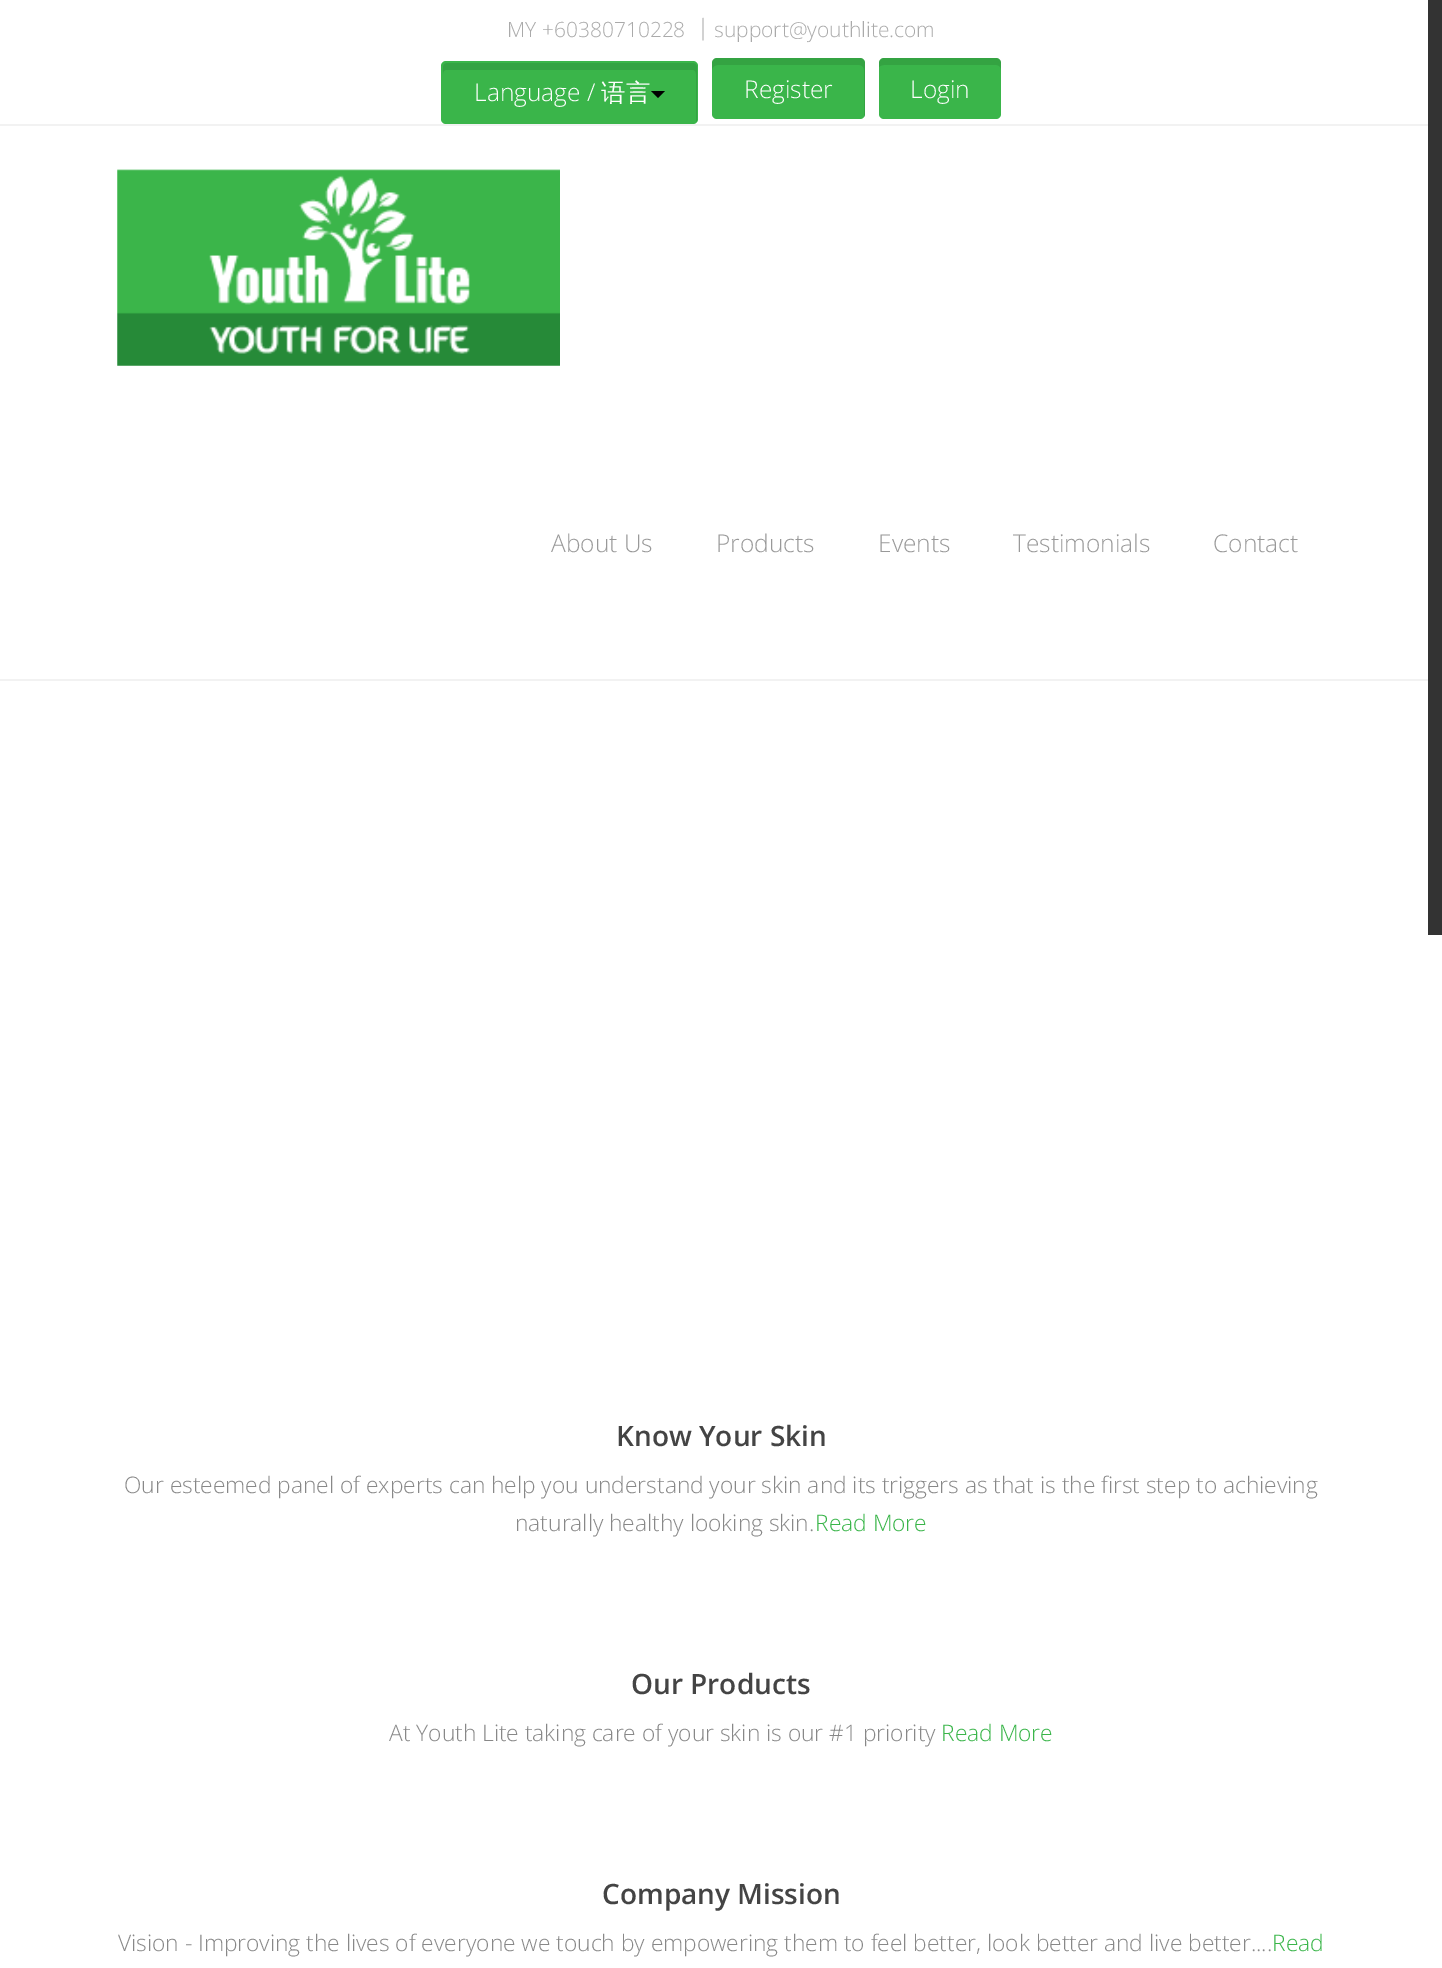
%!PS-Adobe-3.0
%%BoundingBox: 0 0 1442 1968
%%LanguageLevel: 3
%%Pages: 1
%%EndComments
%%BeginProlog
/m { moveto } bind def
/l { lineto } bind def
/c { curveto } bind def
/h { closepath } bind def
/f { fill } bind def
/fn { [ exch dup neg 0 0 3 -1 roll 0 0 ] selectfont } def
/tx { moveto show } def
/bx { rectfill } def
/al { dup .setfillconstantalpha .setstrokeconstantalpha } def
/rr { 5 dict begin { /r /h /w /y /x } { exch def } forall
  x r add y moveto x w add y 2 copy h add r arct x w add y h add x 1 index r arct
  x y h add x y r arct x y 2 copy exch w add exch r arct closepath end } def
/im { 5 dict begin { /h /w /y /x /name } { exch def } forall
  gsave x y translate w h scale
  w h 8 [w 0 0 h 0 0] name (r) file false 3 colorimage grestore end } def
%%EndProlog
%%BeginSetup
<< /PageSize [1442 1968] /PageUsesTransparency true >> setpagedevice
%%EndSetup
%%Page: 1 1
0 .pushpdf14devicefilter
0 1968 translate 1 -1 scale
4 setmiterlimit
1 setgray
0 0 1442 1968 bx
0.949 setgray
0 124 1428 2 bx
/OpenSans-Light 21 fn
0.667 setgray
(MY +60380710228) 507 37 tx
/OpenSans-Light 22.75 fn
(|) 697 35 tx
/OpenSans-Light 21 fn
(support@youthlite.com) 714 37 tx
0.227 0.71 0.29 setrgbcolor
441 61 257 63 5 rr f
0.204 0.639 0.263 setrgbcolor
446 70 m 693 70 l 695 70 696 72 696 74 c 696 122 l 697 121 697 120 697 119 c 697 67 l 697 65 695 63 693 63 c 447 63 l 445 63 443 65 443 67 c 443 74 l 443 72 444 70 446 70 c h f
/OpenSans-Light 24.5 fn
1 setgray
(Language /) 474 101 tx
/WenQuanYiZenHei-Medium 24.5 fn
(语言) 601 101 tx
0 setgray
651 91 m 665 91 l 658 98 l h f
0.227 0.71 0.29 setrgbcolor
712 58 153 61 5 rr f
0.1 al
0 setgray
718 65 m 859 65 l 862 65 864 67 864 70 c 864 117 l 865 116 865 115 865 114 c 865 63 l 865 60 863 58 860 58 c 717 58 l 714 58 712 60 712 63 c 712 70 l 712 67 715 65 718 65 c h f
/OpenSans-Light 24.5 fn
1 al
1 setgray
(Register) 744 98 tx
0.227 0.71 0.29 setrgbcolor
879 58 122 61 5 rr f
0.1 al
0 setgray
884 65 m 996 65 l 999 65 1001 67 1001 70 c 1001 63 l 1001 60 999 58 996 58 c 884 58 l 881 58 879 60 879 63 c 879 67 l 880 66 882 65 884 65 c h f
1 al
1 setgray
(Login) 910 98 tx
0.949 setgray
0 679 1428 2 bx
(image0.raw) 117 169 443 197 im
0.6 setgray
(About Us) 551 552 tx
(Products) 716 552 tx
(Events) 878 552 tx
(Testimonials) 1013 552 tx
(Contact) 1213 552 tx
/OpenSans-SemiBold 28 fn
0.267 setgray
(Know Your Skin) 616 1446 tx
/OpenSans-Light 22.75 fn
0.533 setgray
(Our esteemed panel of experts can help you understand your skin and its triggers as that is the first step to achieving) 124 1493 tx
(naturally healthy looking skin.) 515 1531 tx
0.227 0.71 0.29 setrgbcolor
(Read More) 815 1531 tx
/OpenSans-SemiBold 28 fn
0.267 setgray
(Our Products) 631 1694 tx
/OpenSans-Light 22.75 fn
0.533 setgray
(At Youth Lite taking care of your skin is our #1 priority) 389 1741 tx
0.227 0.71 0.29 setrgbcolor
(Read More) 941 1741 tx
/OpenSans-SemiBold 28 fn
0.267 setgray
(Company Mission) 602 1904 tx
/OpenSans-Light 22.75 fn
0.533 setgray
(Vision - Improving the lives of everyone we touch by empowering them to feel better, look better and live better....) 118 1951 tx
0.227 0.71 0.29 setrgbcolor
(Read) 1272 1951 tx
0.2 setgray
1428 0 14 935 bx
.poppdf14devicefilter showpage
%%EOF
